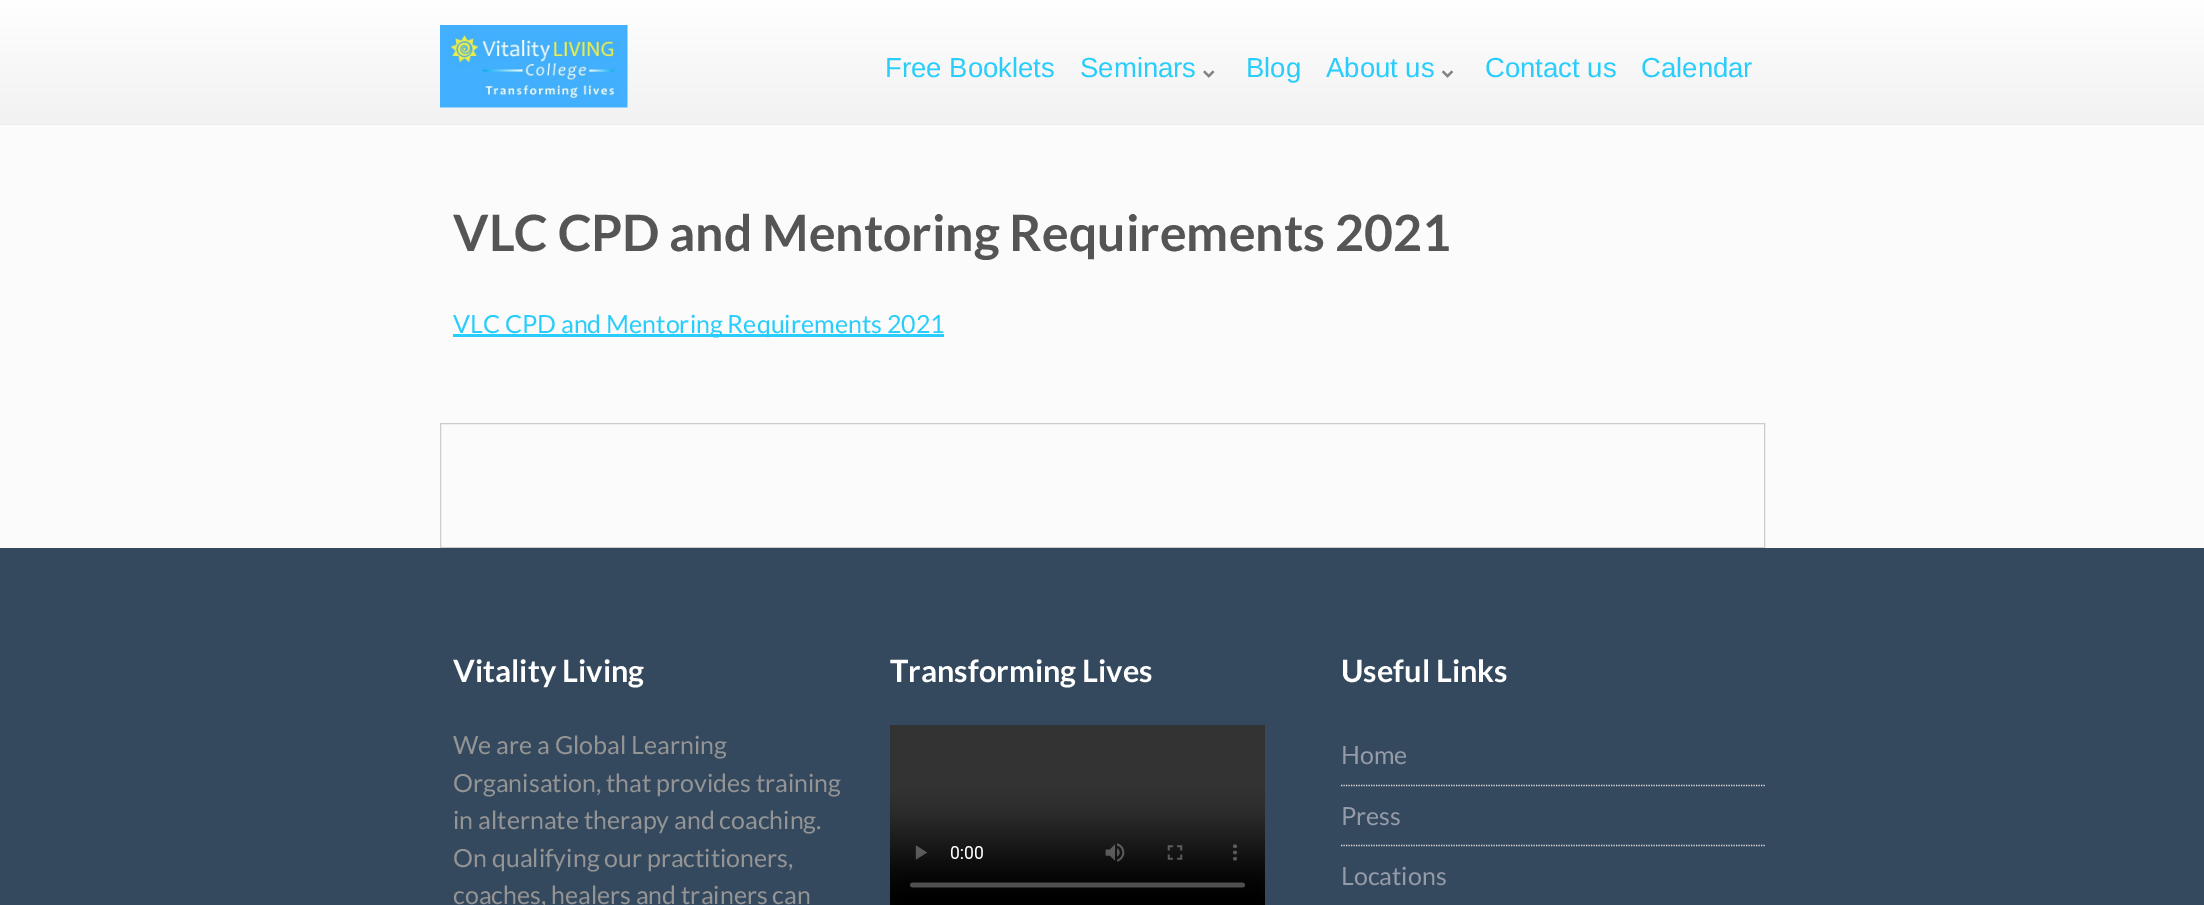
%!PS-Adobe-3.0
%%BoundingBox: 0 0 2204 905
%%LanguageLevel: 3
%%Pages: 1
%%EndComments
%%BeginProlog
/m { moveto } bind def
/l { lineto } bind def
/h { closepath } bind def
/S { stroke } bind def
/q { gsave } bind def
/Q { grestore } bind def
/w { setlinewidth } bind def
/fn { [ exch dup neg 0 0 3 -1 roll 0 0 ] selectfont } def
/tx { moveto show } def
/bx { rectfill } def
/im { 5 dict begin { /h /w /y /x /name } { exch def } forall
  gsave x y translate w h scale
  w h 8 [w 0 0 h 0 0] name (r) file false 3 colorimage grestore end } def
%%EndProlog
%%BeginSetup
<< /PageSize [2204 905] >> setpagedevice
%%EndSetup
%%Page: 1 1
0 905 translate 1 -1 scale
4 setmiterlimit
0.984 setgray
0 0 2204 905 bx
q 0 0 m 2204 0 l 2204 124 l 0 124 l h clip newpath
<< /ShadingType 2 /ColorSpace /DeviceRGB /Coords [1103 0 1103 124] /Extend [true true] /Function << /FunctionType 3 /Domain [0 1] /Functions [<< /FunctionType 2 /Domain [0 1] /C0 [1 1 1] /C1 [0.973 0.973 0.973] /N 1 >> << /FunctionType 2 /Domain [0 1] /C0 [0.973 0.973 0.973] /C1 [0.949 0.949 0.949] /N 1 >>] /Bounds [0.5] /Encode [0 1 0 1] >> >> shfill Q
0.922 setgray
0 124 2204 1 bx
(image0.raw) 440 25 188 83 im
/LiberationSans-Regular 27.5 fn
0.157 0.804 0.984 setrgbcolor
(Free Booklets) 885 77 tx
(Seminars) 1080 77 tx
(image1.raw) 1203 70 12 8 im
(Blog) 1246 77 tx
(About us) 1326 77 tx
(image2.raw) 1442 70 11 8 im
(Contact us) 1485 77 tx
(Calendar) 1641 77 tx
/Lato-Bold 50 fn
0.333 setgray
(VLC CPD and Mentoring Requirements 2021) 453 251 tx
0.157 0.804 0.984 setrgbcolor
453 334 491 3 bx
/Lato-Regular 25 fn
(VLC CPD and Mentoring Requirements 2021) 453 333 tx
0.8 setgray
440.5 423.5 1324 124 rectstroke
0.204 0.286 0.369 setrgbcolor
0 548 2204 357 bx
/Lato-Bold 30.75 fn
1 setgray
(Vitality Living) 453 682 tx
/Lato-Regular 25 fn
0.58 setgray
(We are a Global Learning) 453 754 tx
(Organisation, that provides training) 453 792 tx
(in alternate therapy and coaching.) 453 829 tx
(On qualifying our practitioners,) 453 867 tx
(coaches, healers and trainers can) 453 904 tx
/Lato-Bold 30.75 fn
1 setgray
(Transforming Lives) 890 682 tx
(image3.raw) 890 725 375 180 im
(Useful Links) 1341 682 tx
0.886 0.875 0.875 setrgbcolor
1.2 w
[1.25 1.25] 0 setdash
1341 785.5 m 1765 785.5 l S
/Lato-Regular 25 fn
0.588 0.608 0.663 setrgbcolor
(Home) 1341 764 tx
0.886 0.875 0.875 setrgbcolor
1341 845.5 m 1765 845.5 l S
0.588 0.608 0.663 setrgbcolor
(Press) 1341 825 tx
(Locations) 1341 885 tx
showpage
%%EOF
